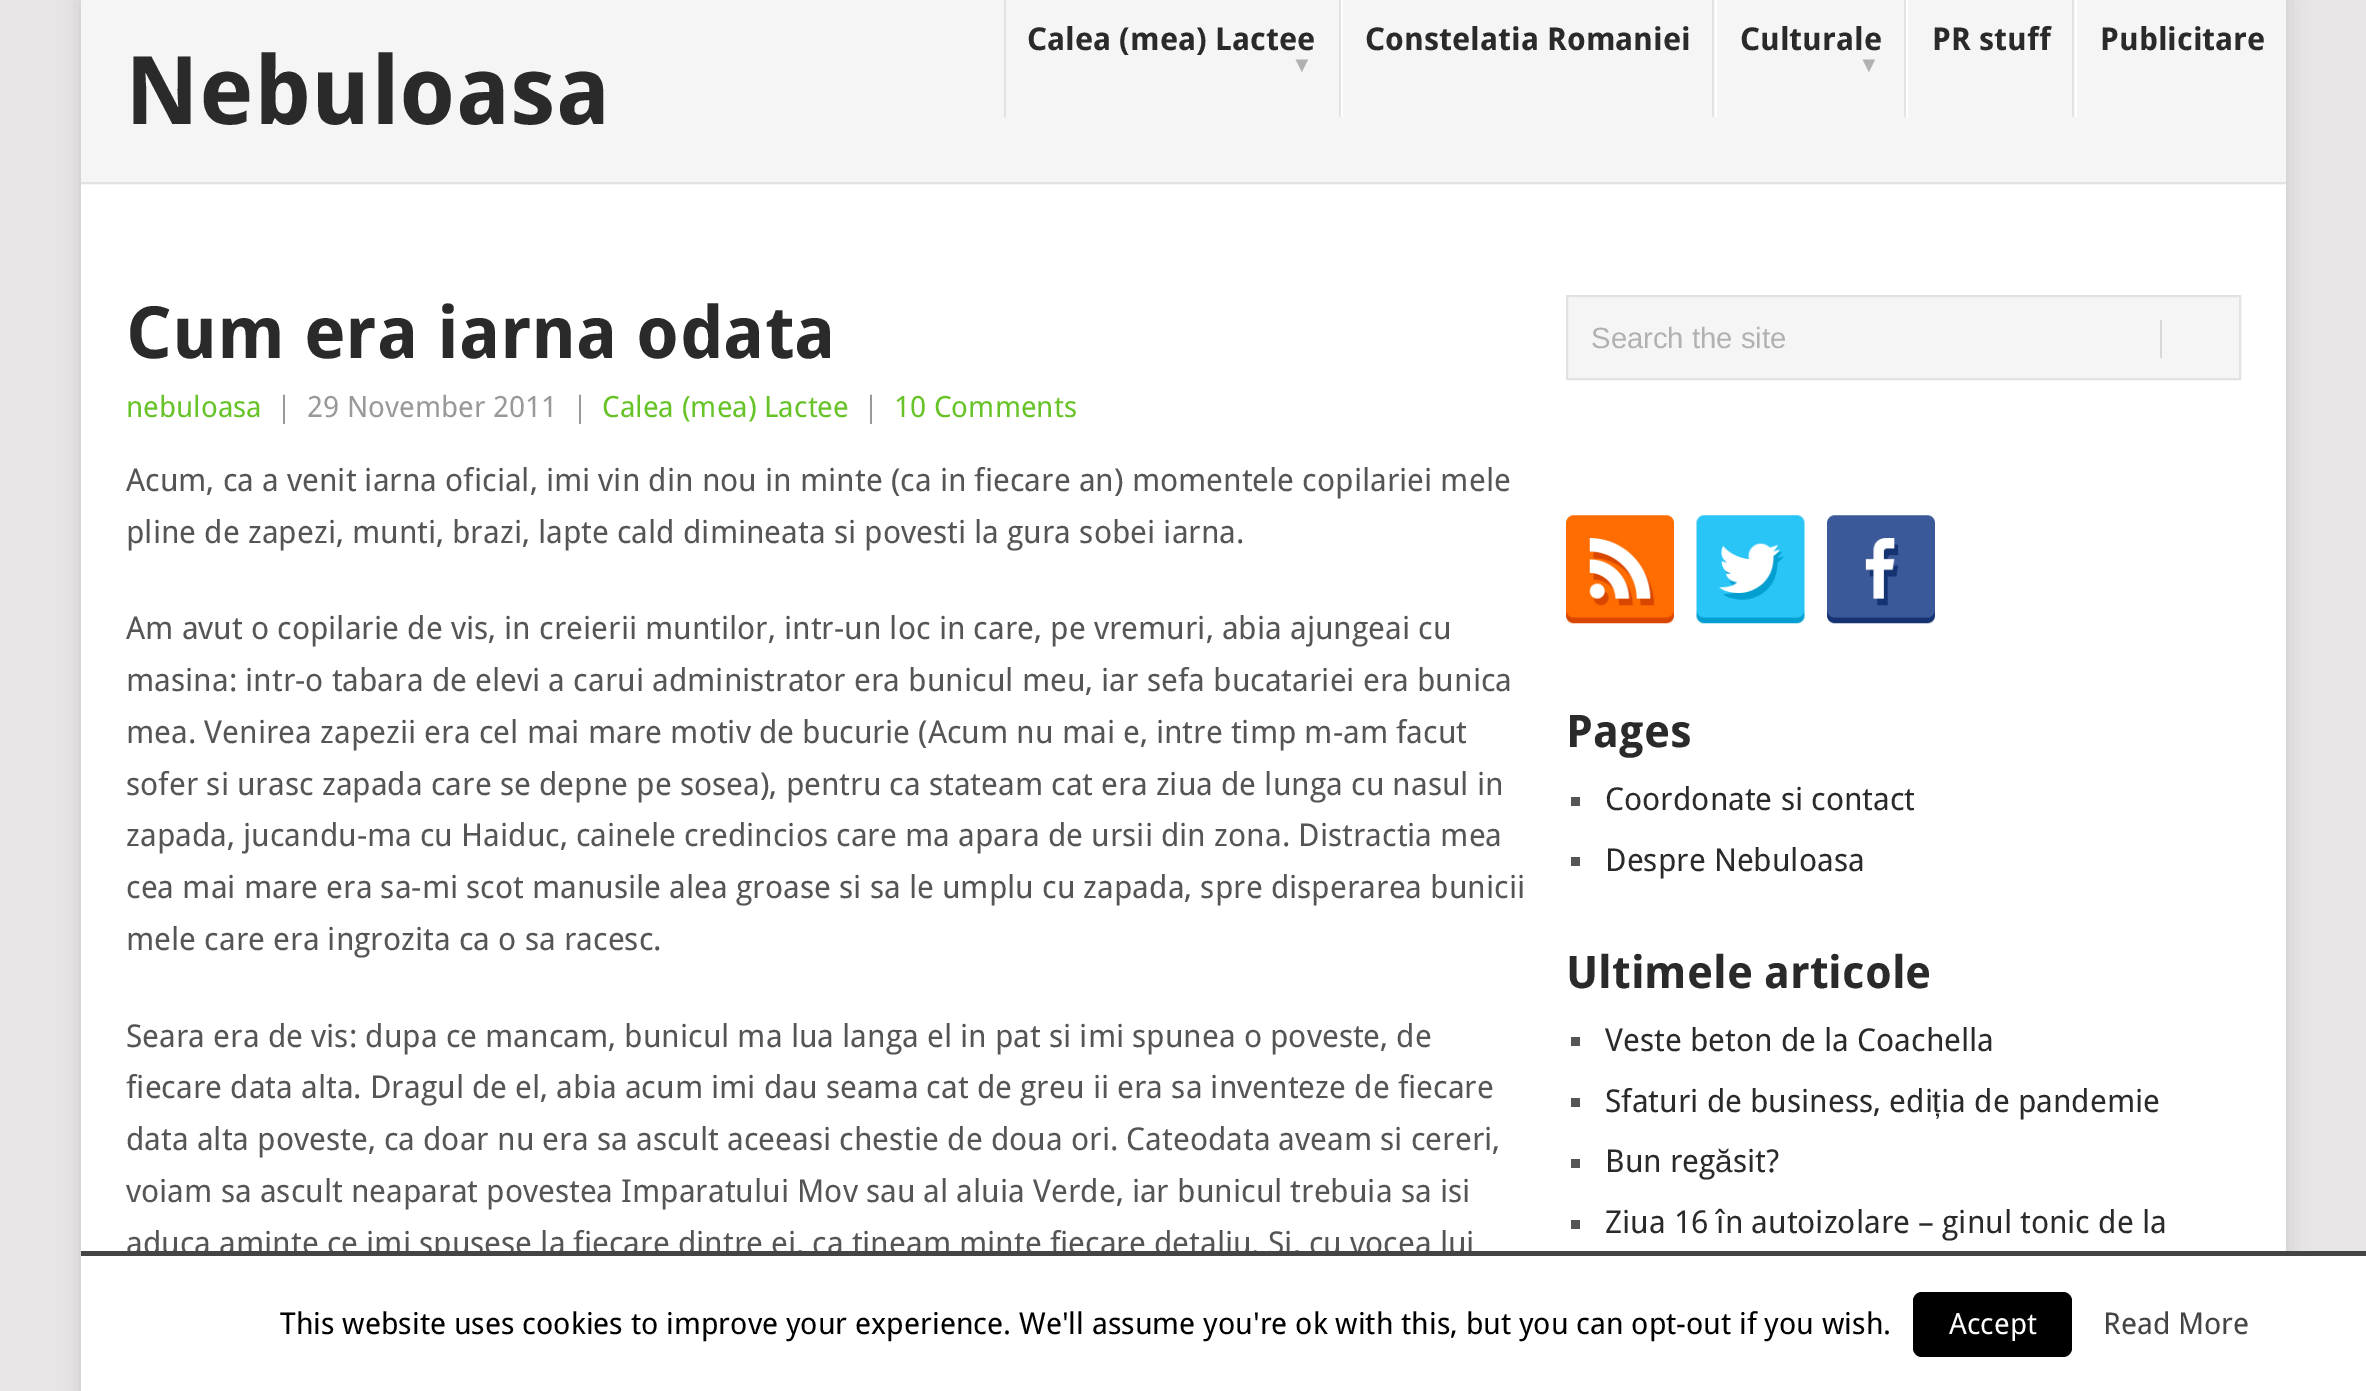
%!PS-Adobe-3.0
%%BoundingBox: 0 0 2366 1391
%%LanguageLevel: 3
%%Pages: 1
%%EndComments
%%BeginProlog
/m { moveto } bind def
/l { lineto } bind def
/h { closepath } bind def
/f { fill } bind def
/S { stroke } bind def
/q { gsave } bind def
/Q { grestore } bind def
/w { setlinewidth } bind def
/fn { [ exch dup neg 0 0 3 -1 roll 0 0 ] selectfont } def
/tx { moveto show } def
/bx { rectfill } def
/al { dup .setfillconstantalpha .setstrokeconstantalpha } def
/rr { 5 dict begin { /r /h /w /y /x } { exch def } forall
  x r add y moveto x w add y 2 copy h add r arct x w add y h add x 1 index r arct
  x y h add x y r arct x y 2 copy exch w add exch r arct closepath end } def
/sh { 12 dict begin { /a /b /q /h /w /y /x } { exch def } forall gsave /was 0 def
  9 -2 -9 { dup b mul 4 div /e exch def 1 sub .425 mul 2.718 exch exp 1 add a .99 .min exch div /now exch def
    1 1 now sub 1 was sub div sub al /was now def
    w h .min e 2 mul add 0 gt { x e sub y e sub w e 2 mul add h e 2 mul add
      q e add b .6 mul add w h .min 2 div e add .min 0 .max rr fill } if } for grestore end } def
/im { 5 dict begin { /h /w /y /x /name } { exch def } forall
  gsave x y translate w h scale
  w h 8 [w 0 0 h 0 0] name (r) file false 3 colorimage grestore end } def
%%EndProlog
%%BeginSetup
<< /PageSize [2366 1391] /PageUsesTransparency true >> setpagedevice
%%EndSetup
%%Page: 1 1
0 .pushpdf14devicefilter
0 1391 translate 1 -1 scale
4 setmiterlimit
0.906 0.898 0.902 setrgbcolor
0 0 2366 1391 bx
0.196 setgray
81 0 2205 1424 0 11 0.17 sh
1 setgray
81 185 2205 1066 bx
0.961 setgray
81 0 2205 185 bx
/DroidSans-Bold 94.5 fn
0.165 setgray
(Nebuloasa) 125 124 tx
0.886 setgray
1339 0 2 117 bx
1004 0 2 117 bx
/DroidSans-Bold 31.5 fn
0.165 setgray
(Calea \(mea\) Lactee) 1027 50 tx
/LiberationSans-Bold 22 fn
0.694 setgray
(▼) 1291 72 tx
0.886 setgray
1712 0 2 117 bx
1 setgray
1341 0 2 117 bx
/DroidSans-Bold 31.5 fn
0.165 setgray
(Constelatia Romaniei) 1365 50 tx
0.886 setgray
1904 0 2 117 bx
1 setgray
1715 0 2 117 bx
0.165 setgray
(Culturale) 1740 50 tx
/LiberationSans-Bold 22 fn
0.694 setgray
(▼) 1858 72 tx
0.886 setgray
2072 0 2 117 bx
1 setgray
1906 0 2 117 bx
/DroidSans-Bold 31.5 fn
0.165 setgray
(PR stuff) 1932 50 tx
1 setgray
2075 0 2 117 bx
0.165 setgray
(Publicitare) 2100 50 tx
0.886 setgray
81 182 2205 2 bx
/DroidSans-Bold 72 fn
0.165 setgray
(Cum era iarna odata) 126 358 tx
/DroidSans-Regular 29.25 fn
0.408 0.765 0.161 setrgbcolor
(nebuloasa) 126 417 tx
0.6 setgray
(|) 276 417 tx
(29 November 2011) 307 417 tx
(|) 572 417 tx
0.408 0.765 0.161 setrgbcolor
(Calea \(mea\) Lactee) 602 417 tx
0.6 setgray
(|) 863 417 tx
0.408 0.765 0.161 setrgbcolor
(10 Comments) 894 417 tx
/DroidSans-Regular 31.5 fn
0.333 setgray
(Acum, ca a venit iarna oficial, imi vin din nou in minte \(ca in fiecare an\) momentele copilariei mele) 126 491 tx
(pline de zapezi, munti, brazi, lapte cald dimineata si povesti la gura sobei iarna.) 126 543 tx
(Am avut o copilarie de vis, in creierii muntilor, intr-un loc in care, pe vremuri, abia ajungeai cu) 126 639 tx
(masina: intr-o tabara de elevi a carui administrator era bunicul meu, iar sefa bucatariei era bunica) 126 691 tx
(mea. Venirea zapezii era cel mai mare motiv de bucurie \(Acum nu mai e, intre timp m-am facut) 126 743 tx
(sofer si urasc zapada care se depne pe sosea\), pentru ca stateam cat era ziua de lunga cu nasul in) 126 795 tx
(zapada, jucandu-ma cu Haiduc, cainele credincios care ma apara de ursii din zona. Distractia mea) 126 846 tx
(cea mai mare era sa-mi scot manusile alea groase si sa le umplu cu zapada, spre disperarea bunicii) 126 898 tx
(mele care era ingrozita ca o sa racesc.) 126 950 tx
(Seara era de vis: dupa ce mancam, bunicul ma lua langa el in pat si imi spunea o poveste, de) 126 1047 tx
(fiecare data alta. Dragul de el, abia acum imi dau seama cat de greu ii era sa inventeze de fiecare) 126 1098 tx
(data alta poveste, ca doar nu era sa ascult aceeasi chestie de doua ori. Cateodata aveam si cereri,) 126 1150 tx
(voiam sa ascult neaparat povestea Imparatului Mov sau al aluia Verde, iar bunicul trebuia sa isi) 126 1202 tx
(aduca aminte ce imi spusese la fiecare dintre ei, ca tineam minte fiecare detaliu. Si, cu vocea lui) 126 1254 tx
0.961 setgray
1567 296 m 2240 296 l 2240 379 l 1567 379 l h q f Q
0.886 setgray
2 w
S
/LiberationSans-Regular 29.25 fn
0.694 setgray
(Search the site) 1591 348 tx
0.847 setgray
2160 320 2 38 bx
(image0.raw) 1566 515 108 109 im
(image1.raw) 1696 515 109 109 im
(image2.raw) 1827 515 108 109 im
/DroidSans-Bold 45 fn
0.165 setgray
(Pages) 1566 747 tx
0.333 setgray
1571 797 9 9 bx
/DroidSans-Regular 31.5 fn
0.165 setgray
(Coordonate si contact) 1605 810 tx
0.333 setgray
1571 857 9 9 bx
0.165 setgray
(Despre Nebuloasa) 1605 871 tx
/DroidSans-Bold 45 fn
(Ultimele articole) 1566 988 tx
0.333 setgray
1571 1037 9 9 bx
/DroidSans-Regular 31.5 fn
0.165 setgray
(Veste beton de la Coachella) 1605 1051 tx
0.333 setgray
1571 1098 9 9 bx
0.165 setgray
(Sfaturi de business, edi) 1605 1112 tx
/LiberationSans-Regular 31.5 fn
(ț) 1932 1112 tx
/DroidSans-Regular 31.5 fn
(ia de pandemie) 1941 1112 tx
0.333 setgray
1571 1159 9 9 bx
0.165 setgray
(Bun reg) 1605 1172 tx
/LiberationSans-Regular 31.5 fn
(ă) 1715 1172 tx
/DroidSans-Regular 31.5 fn
(sit?) 1733 1172 tx
0.333 setgray
1571 1220 9 9 bx
0.165 setgray
(Ziua 16 în autoizolare – ginul tonic de la) 1605 1233 tx
1 setgray
81 1256 2285 135 bx
0.267 setgray
81 1251 2285 5 bx
/DroidSans-Regular 30 fn
0 setgray
(This website uses cookies to improve your experience. We'll assume you're ok with this, but you can opt-out if you wish.) 280 1334 tx
1913 1292 159 65 9 rr f
/DroidSans-Regular 29.25 fn
1 setgray
(Accept) 1949 1334 tx
/DroidSans-Regular 30 fn
0.267 setgray
(Read More) 2103 1334 tx
.poppdf14devicefilter showpage
%%EOF
